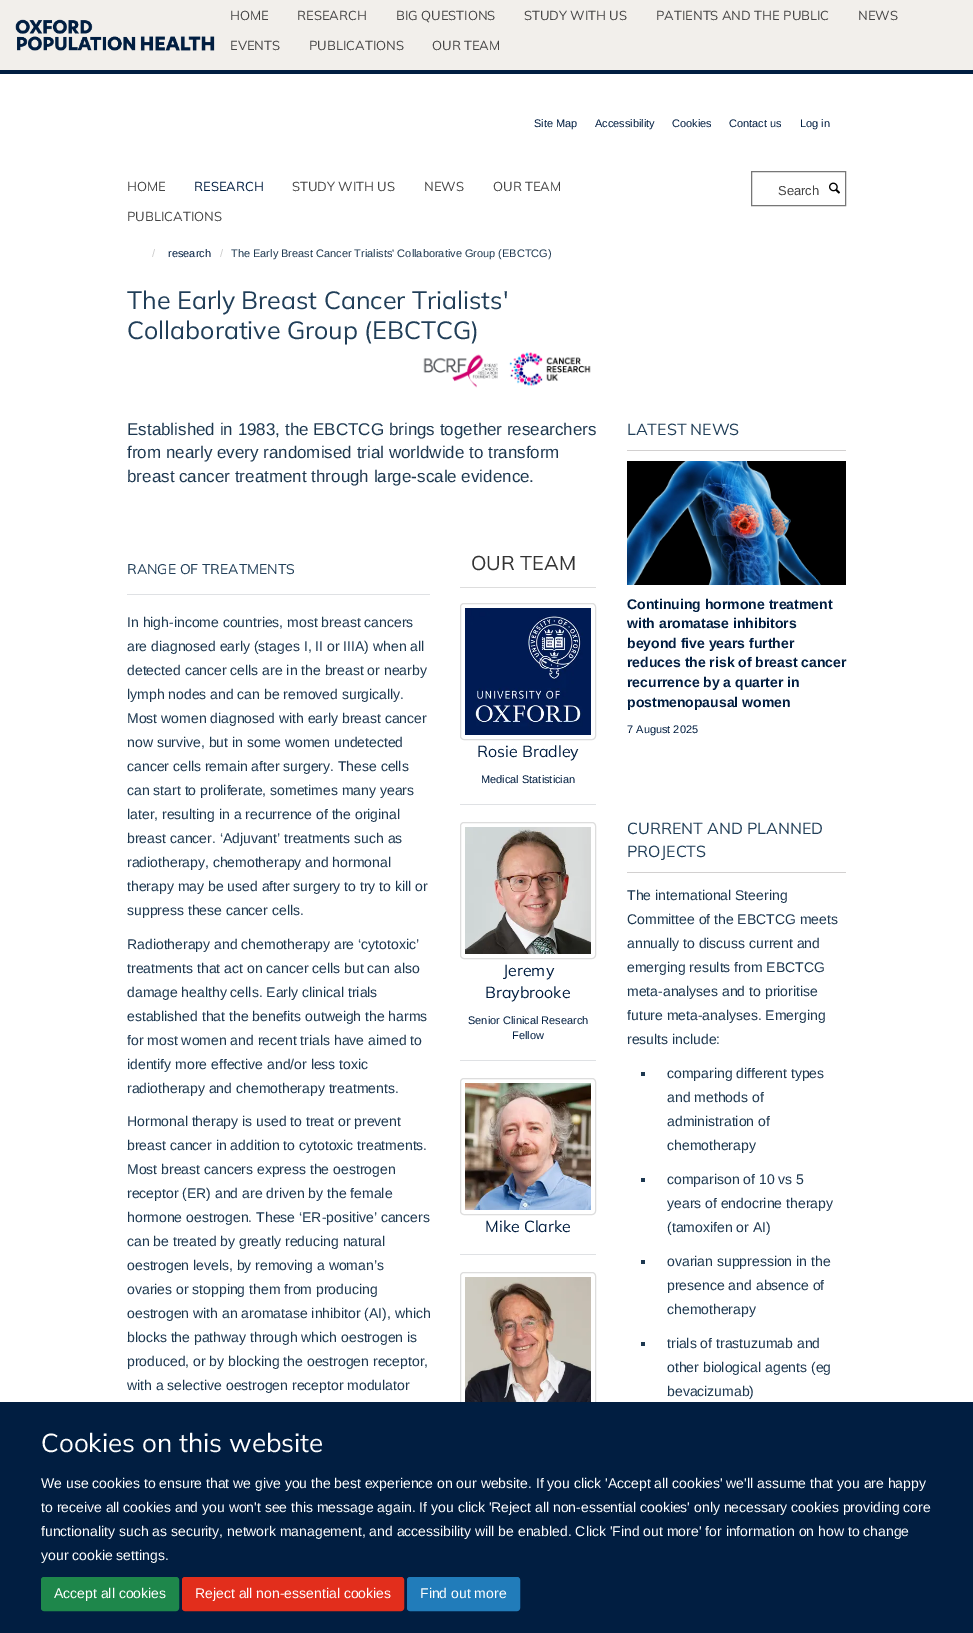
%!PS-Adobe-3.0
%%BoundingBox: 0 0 973 1633
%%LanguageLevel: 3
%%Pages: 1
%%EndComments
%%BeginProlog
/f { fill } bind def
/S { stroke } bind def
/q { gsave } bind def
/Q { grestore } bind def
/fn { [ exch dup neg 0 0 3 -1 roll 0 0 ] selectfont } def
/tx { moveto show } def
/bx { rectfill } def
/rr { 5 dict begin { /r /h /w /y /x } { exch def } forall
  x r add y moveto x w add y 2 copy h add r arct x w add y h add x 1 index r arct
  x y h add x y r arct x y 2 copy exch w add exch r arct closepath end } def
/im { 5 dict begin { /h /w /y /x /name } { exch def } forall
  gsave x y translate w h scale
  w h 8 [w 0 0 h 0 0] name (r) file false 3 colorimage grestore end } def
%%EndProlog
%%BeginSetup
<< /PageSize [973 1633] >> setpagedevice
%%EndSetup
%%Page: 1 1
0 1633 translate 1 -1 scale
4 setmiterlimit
1 setgray
0 0 973 1633 bx
0.949 0.937 0.922 setrgbcolor
0 0 973 70 bx
0.004 0.118 0.255 setrgbcolor
0 70 973 4 bx
(image0.raw) 15 19 200 32 im
/Mulish-Regular 13 fn
0.267 setgray
(HOME) 230 20 tx
(RESEARCH) 297 20 tx
(BIG QUESTIONS) 396 20 tx
(STUDY WITH US) 524 20 tx
(PATIENTS AND THE PUBLIC) 656 20 tx
(NEWS) 858 20 tx
(EVENTS) 230 50 tx
(PUBLICATIONS) 309 50 tx
(OUR TEAM) 432 50 tx
/LiberationSans-Regular 11 fn
0.004 0.118 0.255 setrgbcolor
(Site Map) 534 127 tx
(Accessibility) 595 127 tx
(Cookies) 672 127 tx
(Contact us) 729 127 tx
(Log in) 800 127 tx
/Mulish-Regular 13 fn
0.267 setgray
(HOME) 127 191 tx
0.004 0.118 0.255 setrgbcolor
(RESEARCH) 194 191 tx
0.267 setgray
(STUDY WITH US) 292 191 tx
(NEWS) 424 191 tx
(OUR TEAM) 493 191 tx
(PUBLICATIONS) 127 221 tx
0.467 setgray
751.5 171.5 94 34 rectstroke
/LiberationSans-Regular 13 fn
0.267 setgray
(Search) 778 195 tx
(image1.raw) 829 182 11 12 im
/LiberationSans-Regular 11 fn
0.8 setgray
(/) 152 257 tx
0.004 0.118 0.255 setrgbcolor
(research) 168 257 tx
0.8 setgray
(/) 220 257 tx
0.114 0.22 0.314 setrgbcolor
(The Early Breast Cancer Trialists' Collaborative Group \(EBCTCG\)) 231 257 tx
/Mulish-Regular 25 fn
0.125 0.243 0.345 setrgbcolor
(The Early Breast Cancer Trialists') 127 309 tx
(Collaborative Group \(EBCTCG\)) 127 339 tx
(image2.raw) 423 352 168 36 im
/LiberationSans-Regular 17 fn
0.114 0.22 0.314 setrgbcolor
(Established in 1983, the EBCTCG brings together researchers) 127 435 tx
(from nearly every randomised trial worldwide to transform) 127 458 tx
(breast cancer treatment through large-scale evidence.) 127 482 tx
0.875 0.882 0.894 setrgbcolor
127 594 303 1 bx
/Mulish-Regular 14 fn
0.125 0.243 0.345 setrgbcolor
(RANGE OF TREATMENTS) 127 574 tx
/LiberationSans-Regular 14 fn
0.114 0.22 0.314 setrgbcolor
(In high-income countries, most breast cancers) 127 627 tx
(are diagnosed early \(stages I, II or IIIA\) when all) 127 651 tx
(detected cancer cells are in the breast or nearby) 127 675 tx
(lymph nodes and can be removed surgically.) 127 699 tx
(Most women diagnosed with early breast cancer) 127 723 tx
(now survive, but in some women undetected) 127 747 tx
(cancer cells remain after surgery. These cells) 127 771 tx
(can start to proliferate, sometimes many years) 127 795 tx
(later, resulting in a recurrence of the original) 127 819 tx
(breast cancer. ‘Adjuvant’ treatments such as) 127 843 tx
(radiotherapy, chemotherapy and hormonal) 127 867 tx
(therapy may be used after surgery to try to kill or) 127 891 tx
(suppress these cancer cells.) 127 915 tx
(Radiotherapy and chemotherapy are ‘cytotoxic’) 127 949 tx
(treatments that act on cancer cells but can also) 127 973 tx
(damage healthy cells. Early clinical trials) 127 997 tx
(established that the benefits outweigh the harms) 127 1021 tx
(for most women and recent trials have aimed to) 127 1045 tx
(identify more effective and/or less toxic) 127 1069 tx
(radiotherapy and chemotherapy treatments.) 127 1093 tx
(Hormonal therapy is used to treat or prevent) 127 1126 tx
(breast cancer in addition to cytotoxic treatments.) 127 1150 tx
(Most breast cancers express the oestrogen) 127 1174 tx
(receptor \(ER\) and are driven by the female) 127 1198 tx
(hormone oestrogen. These ‘ER-positive’ cancers) 127 1222 tx
(can be treated by greatly reducing natural) 127 1246 tx
(oestrogen levels, by removing a woman’s) 127 1270 tx
(ovaries or stopping them from producing) 127 1294 tx
(oestrogen with an aromatase inhibitor \(AI\), which) 127 1318 tx
(blocks the pathway through which oestrogen is) 127 1342 tx
(produced, or by blocking the oestrogen receptor,) 127 1366 tx
(with a selective oestrogen receptor modulator) 127 1390 tx
0.867 setgray
460 587 136 1 bx
/Mulish-Regular 20 fn
0.2 setgray
(OUR TEAM) 471 570 tx
0.875 0.882 0.894 setrgbcolor
460 804 136 1 bx
0.867 setgray
460.5 603.5 135 136 3.5 rr S
(image3.raw) 465 608 126 127 im
/Mulish-Regular 16 fn
0.004 0.118 0.255 setrgbcolor
(Rosie Bradley) 477 757 tx
/LiberationSans-Regular 11 fn
(Medical Statistician) 481 783 tx
0.875 0.882 0.894 setrgbcolor
460 1060 136 1 bx
0.867 setgray
460.5 822.5 135 136 3.5 rr S
(image4.raw) 465 827 126 127 im
/Mulish-Regular 16 fn
0.004 0.118 0.255 setrgbcolor
(Jeremy) 503 976 tx
(Braybrooke) 485 998 tx
/LiberationSans-Regular 11 fn
(Senior Clinical Research) 468 1024 tx
(Fellow) 512 1039 tx
0.875 0.882 0.894 setrgbcolor
460 1254 136 1 bx
0.867 setgray
460.5 1078.5 135 136 3.5 rr S
(image5.raw) 465 1083 126 127 im
/Mulish-Regular 16 fn
0.004 0.118 0.255 setrgbcolor
(Mike Clarke) 485 1232 tx
0.867 setgray
460.5 1272.5 135 136 3.5 rr S
(image6.raw) 465 1277 126 125 im
0.824 0.816 0.816 setrgbcolor
627 450 219 1 bx
0.125 0.243 0.345 setrgbcolor
(LATEST NEWS) 627 435 tx
(image7.raw) 627 461 219 124 im
/LiberationSans-Bold 14 fn
0.004 0.118 0.255 setrgbcolor
(Continuing hormone treatment) 627 609 tx
(with aromatase inhibitors) 627 628 tx
(beyond five years further) 627 648 tx
(reduces the risk of breast cancer) 627 667 tx
(recurrence by a quarter in) 627 687 tx
(postmenopausal women) 627 707 tx
/LiberationSans-Regular 11 fn
(7 August 2025) 627 733 tx
0.824 0.816 0.816 setrgbcolor
627 872 219 1 bx
/Mulish-Regular 16 fn
0.125 0.243 0.345 setrgbcolor
(CURRENT AND PLANNED) 627 834 tx
(PROJECTS) 627 857 tx
/LiberationSans-Regular 14 fn
0.114 0.22 0.314 setrgbcolor
(The international Steering) 627 900 tx
(Committee of the EBCTCG meets) 627 924 tx
(annually to discuss current and) 627 948 tx
(emerging results from EBCTCG) 627 972 tx
(meta-analyses and to prioritise) 627 996 tx
(future meta-analyses. Emerging) 627 1020 tx
(results include:) 627 1044 tx
641 1072 4 4 bx
(comparing different types) 667 1078 tx
(and methods of) 667 1102 tx
(administration of) 667 1126 tx
(chemotherapy) 667 1150 tx
641 1178 4 4 bx
(comparison of 10 vs 5) 667 1184 tx
(years of endocrine therapy) 667 1208 tx
(\(tamoxifen or AI\)) 667 1232 tx
641 1260 4 4 bx
(ovarian suppression in the) 667 1266 tx
(presence and absence of) 667 1290 tx
(chemotherapy) 667 1314 tx
641 1342 4 4 bx
(trials of trastuzumab and) 667 1348 tx
(other biological agents \(eg) 667 1372 tx
(bevacizumab\)) 667 1396 tx
0.004 0.118 0.255 setrgbcolor
0 1402 973 231 bx
/Mulish-Regular 26 fn
1 setgray
(Cookies on this website) 41 1452 tx
/LiberationSans-Regular 14 fn
(We use cookies to ensure that we give you the best experience on our website. If you click 'Accept all cookies' we'll assume that you are happy) 41 1488 tx
(to receive all cookies and you won't see this message again. If you click 'Reject all non-essential cookies' only necessary cookies providing core) 41 1512 tx
(functionality such as security, network management, and accessibility will be enabled. Click 'Find out more' for information on how to change) 41 1536 tx
(your cookie settings.) 41 1560 tx
0.118 0.529 0.294 setrgbcolor
41.5 1577.5 137 33 2.5 rr q f Q
S
1 setgray
(Accept all cookies) 54 1598 tx
0.886 0.18 0.11 setrgbcolor
182.5 1577.5 221 33 2.5 rr q f Q
S
1 setgray
(Reject all non-essential cookies) 195 1598 tx
0.129 0.486 0.729 setrgbcolor
407.5 1577.5 112 33 2.5 rr q f Q
S
1 setgray
(Find out more) 420 1598 tx
showpage
%%EOF
